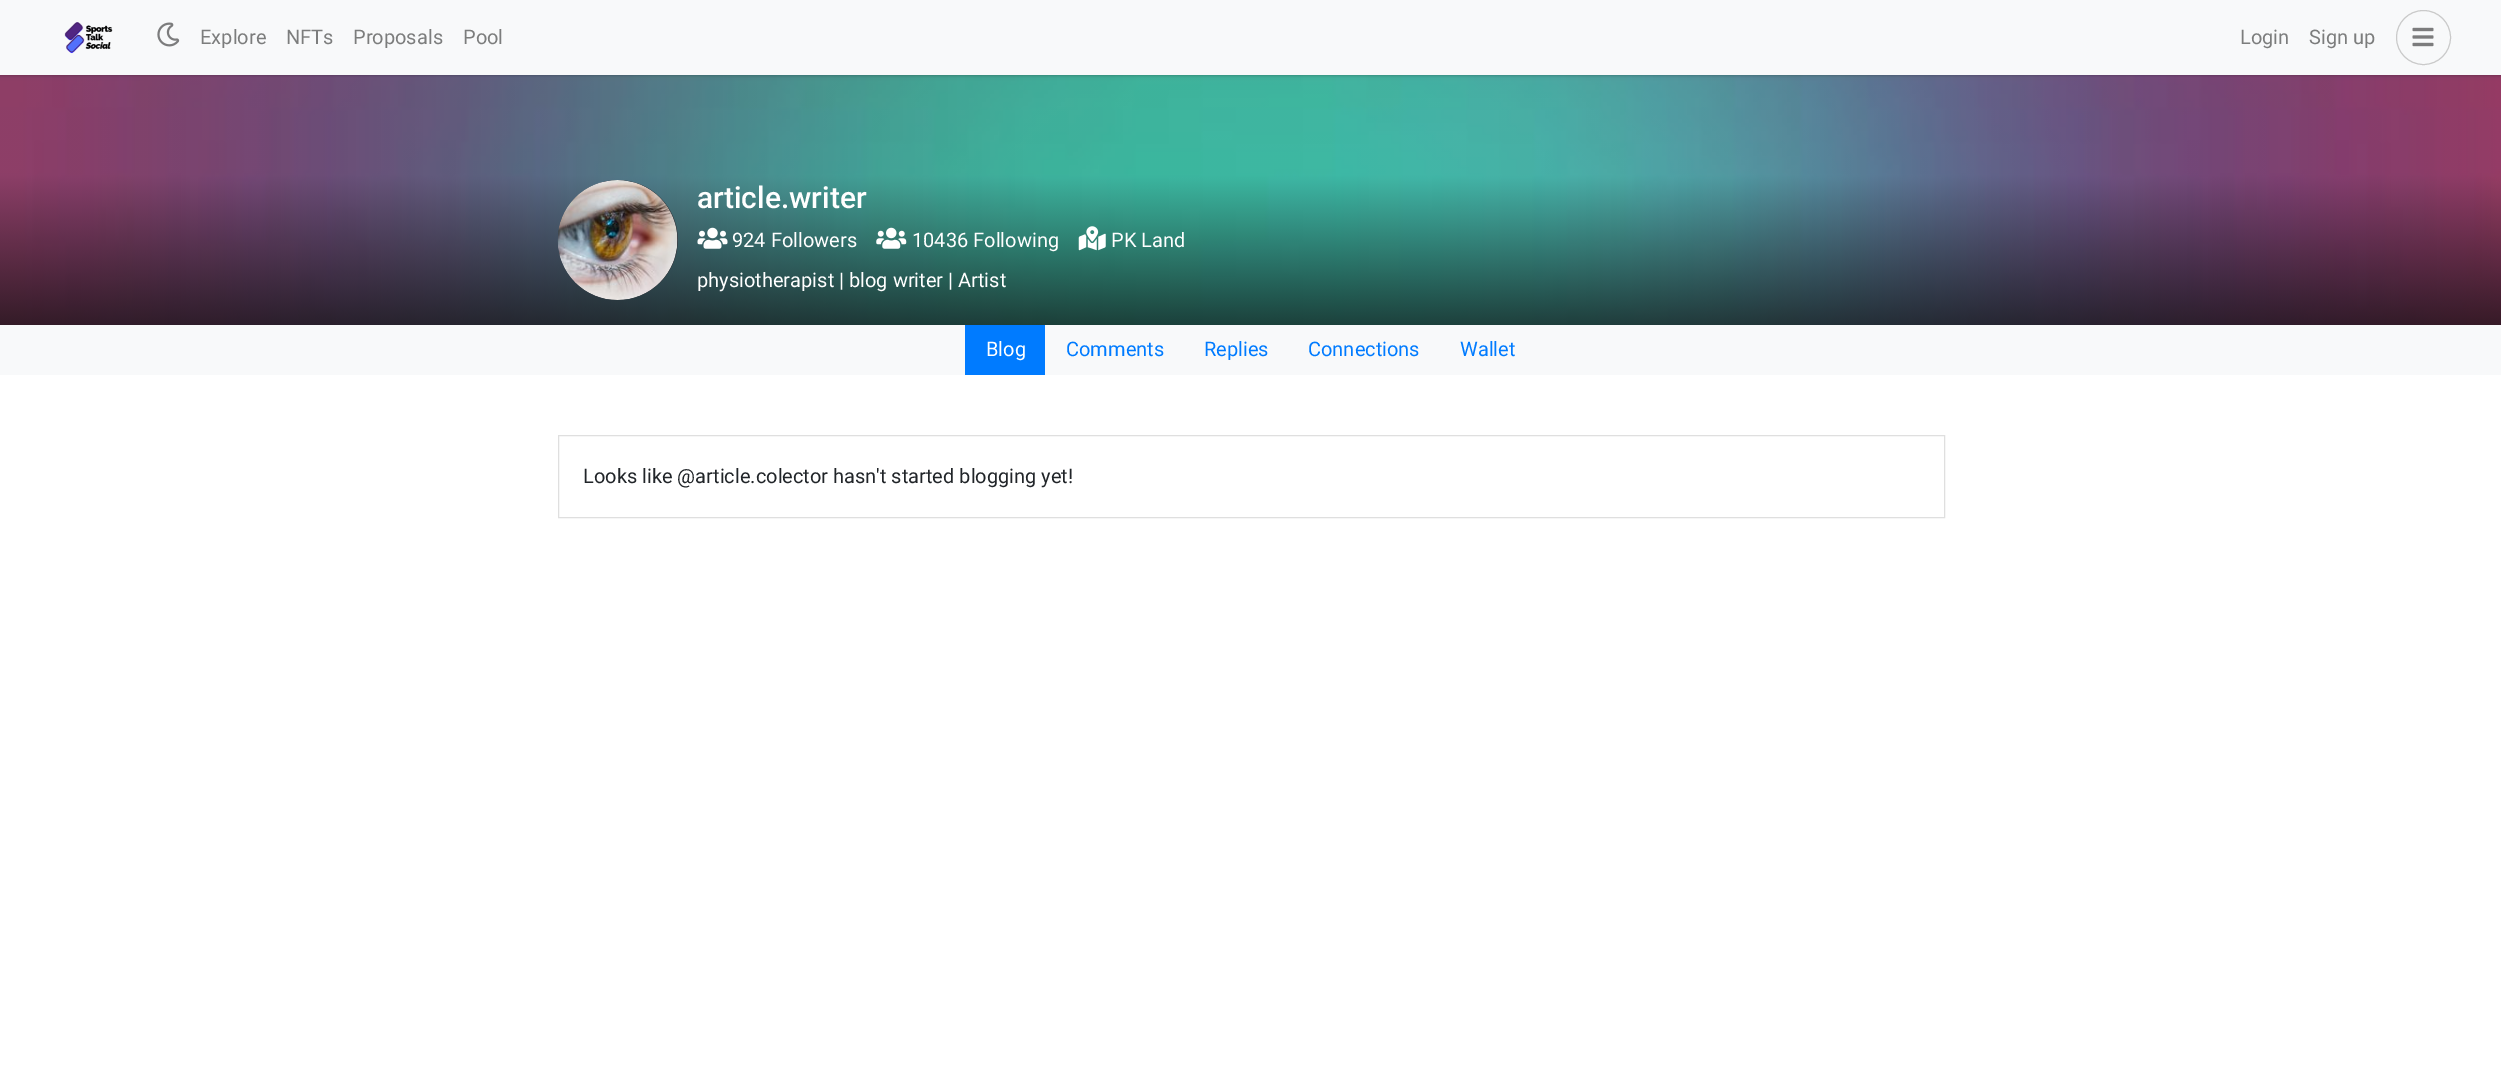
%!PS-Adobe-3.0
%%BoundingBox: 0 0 2501 1067
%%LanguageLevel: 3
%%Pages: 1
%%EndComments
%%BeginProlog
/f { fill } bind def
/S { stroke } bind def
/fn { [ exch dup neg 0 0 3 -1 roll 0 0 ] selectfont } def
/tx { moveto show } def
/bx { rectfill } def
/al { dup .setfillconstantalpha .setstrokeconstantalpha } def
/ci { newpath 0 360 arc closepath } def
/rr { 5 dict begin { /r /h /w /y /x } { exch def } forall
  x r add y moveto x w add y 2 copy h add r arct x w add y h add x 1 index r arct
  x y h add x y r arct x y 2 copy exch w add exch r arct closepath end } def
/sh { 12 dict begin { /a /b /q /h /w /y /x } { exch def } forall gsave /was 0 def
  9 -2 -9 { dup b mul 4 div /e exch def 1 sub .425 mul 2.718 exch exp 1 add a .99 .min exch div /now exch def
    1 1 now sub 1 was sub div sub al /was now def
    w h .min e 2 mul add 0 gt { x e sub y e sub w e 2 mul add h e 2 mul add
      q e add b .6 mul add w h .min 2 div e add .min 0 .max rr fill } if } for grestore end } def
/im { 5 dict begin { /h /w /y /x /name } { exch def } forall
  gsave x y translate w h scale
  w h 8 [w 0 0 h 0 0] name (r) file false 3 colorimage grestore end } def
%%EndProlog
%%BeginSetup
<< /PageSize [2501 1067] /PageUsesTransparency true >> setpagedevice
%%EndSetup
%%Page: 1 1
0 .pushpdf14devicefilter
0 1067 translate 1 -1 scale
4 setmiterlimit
1 setgray
0 0 2501 1067 bx
(image3.raw) 0 75 2501 250 im
0 setgray
0 1 2501 75 0 1 0.14 sh
0 1 2501 75 0 2 0.07 sh
0.973 0.976 0.98 setrgbcolor
0 0 2501 75 bx
(image0.raw) 64 22 49 32 im
(image1.raw) 157 22 23 25 im
/Roboto-Regular 20 fn
0.486 0.49 0.49 setrgbcolor
(Explore) 200 44 tx
(NFTs) 286 44 tx
(Proposals) 353 44 tx
(Pool) 463 44 tx
(Login) 2240 44 tx
(Sign up) 2309 44 tx
0.792 setgray
2423.5 37.5 27 ci S
(image2.raw) 2412 27 22 20 im
0.204 0.227 0.251 setrgbcolor
618 240 60 ci f
(image4.raw) 557 180 121 120 im
/Roboto-Medium 30 fn
1 setgray
(article.writer) 697 208 tx
(image5.raw) 697 227 31 22 im
/Roboto-Regular 20 fn
(924 Followers) 732 247 tx
(image6.raw) 876 227 31 22 im
(10436 Following) 912 247 tx
(image7.raw) 1078 226 28 25 im
(PK Land) 1111 247 tx
(physiotherapist | blog writer | Artist) 697 287 tx
0.973 0.976 0.98 setrgbcolor
0 325 2501 50 bx
0 0.482 1 setrgbcolor
965 325 80 50 bx
1 setgray
(Blog) 986 356 tx
0 0.482 1 setrgbcolor
(Comments) 1066 356 tx
(Replies) 1204 356 tx
(Connections) 1308 356 tx
(Wallet) 1460 356 tx
0.875 setgray
558.5 435.5 1386 82 rectstroke
0.129 0.145 0.161 setrgbcolor
(Looks like @article.colector hasn't started blogging yet!) 583 483 tx
.poppdf14devicefilter showpage
%%EOF
